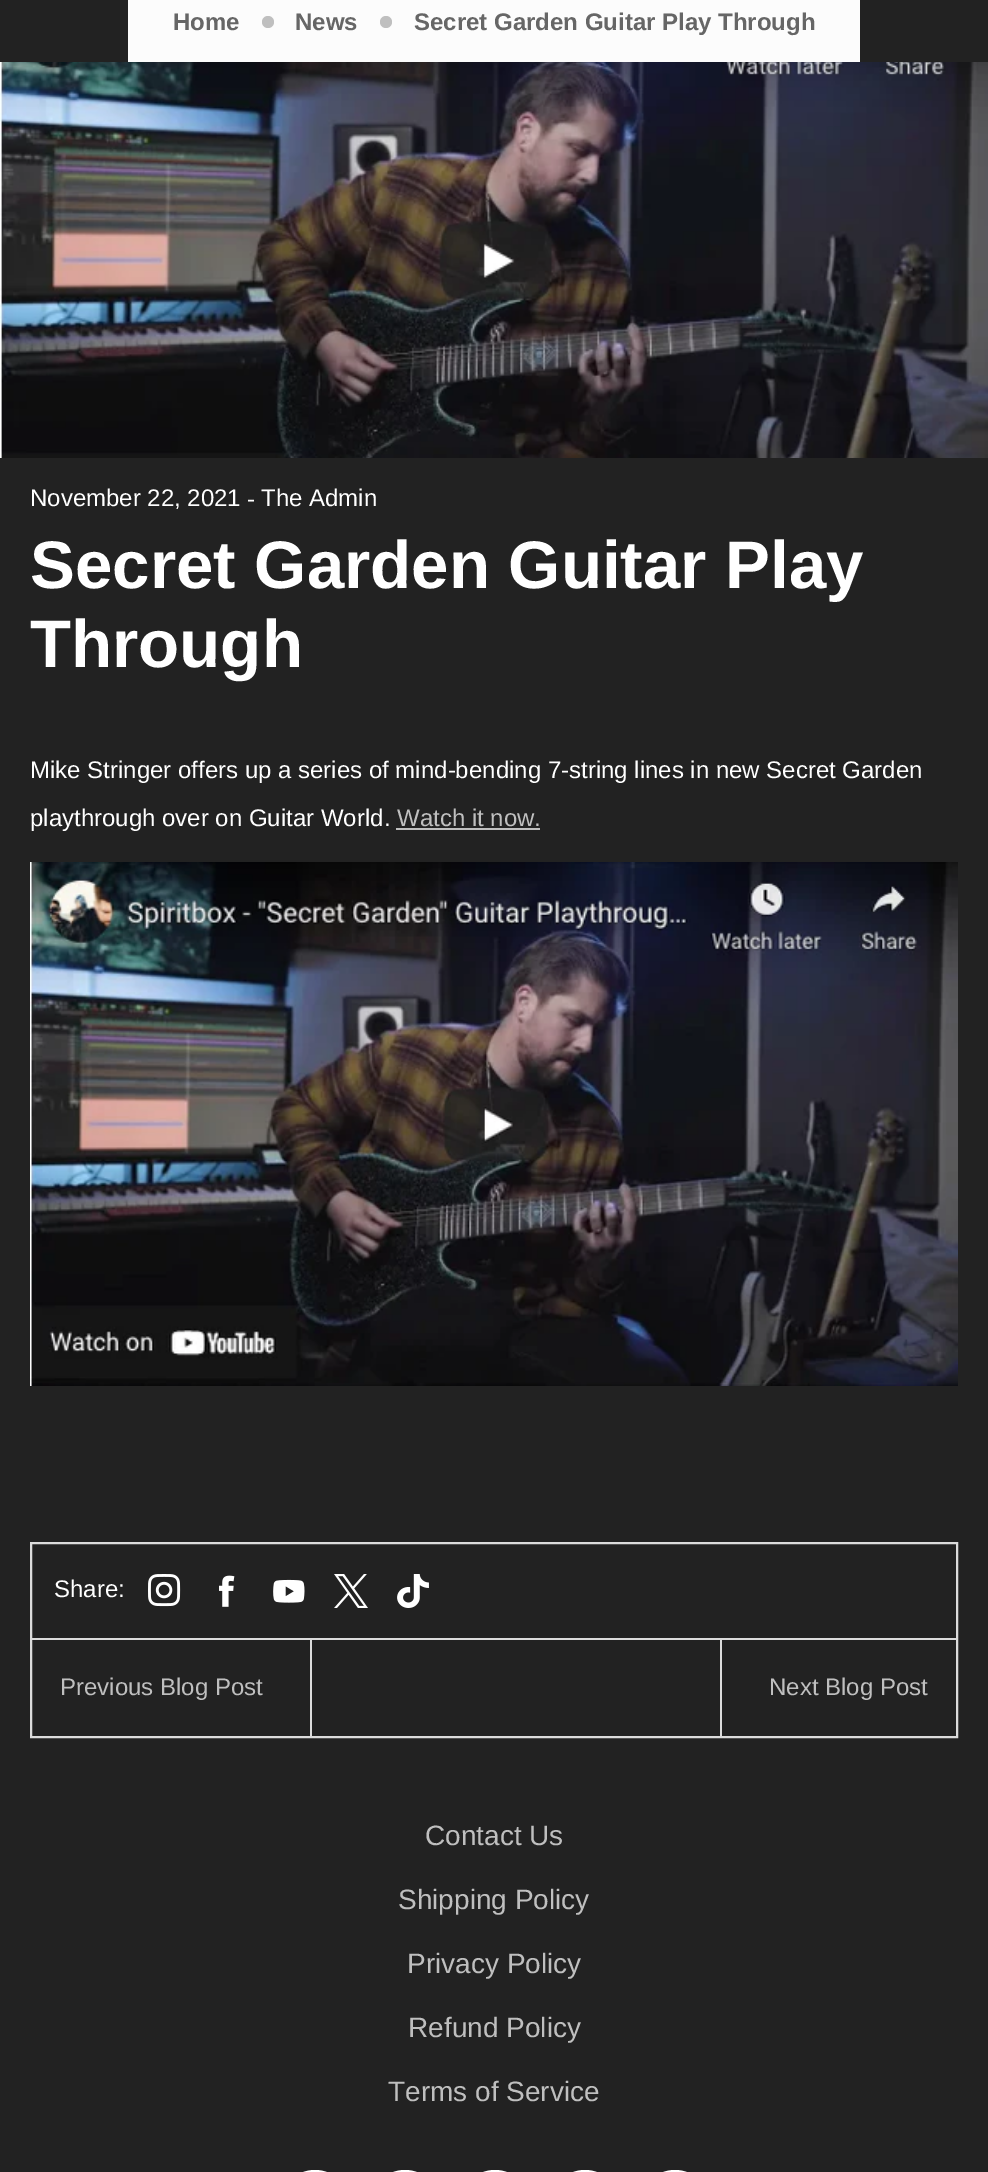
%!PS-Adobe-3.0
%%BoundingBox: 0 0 988 2172
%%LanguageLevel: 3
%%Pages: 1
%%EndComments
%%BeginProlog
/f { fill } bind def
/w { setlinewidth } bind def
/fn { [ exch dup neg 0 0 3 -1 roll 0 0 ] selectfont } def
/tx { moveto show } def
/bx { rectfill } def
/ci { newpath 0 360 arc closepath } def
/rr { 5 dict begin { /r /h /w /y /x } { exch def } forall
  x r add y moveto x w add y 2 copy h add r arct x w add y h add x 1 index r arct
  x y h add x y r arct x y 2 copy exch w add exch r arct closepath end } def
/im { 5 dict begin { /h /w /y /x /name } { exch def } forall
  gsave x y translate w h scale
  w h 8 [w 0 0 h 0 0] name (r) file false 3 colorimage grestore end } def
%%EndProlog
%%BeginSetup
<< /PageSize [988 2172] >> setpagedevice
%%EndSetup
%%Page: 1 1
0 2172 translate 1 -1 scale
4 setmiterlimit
0.133 setgray
0 0 988 2172 bx
0.988 setgray
128 0 732 62 bx
/LiberationSans-Bold 24 fn
0.4 setgray
(Home) 173 30 tx
0.749 setgray
268 22 6 ci f
0.4 setgray
(News) 295 30 tx
0.749 setgray
386 22 6 ci f
0.4 setgray
(Secret Garden Guitar Play Through) 414 30 tx
(image0.raw) 0 62 988 396 im
/LiberationSans-Regular 24 fn
1 setgray
(November 22, 2021) 30 506 tx
(-) 247 507 tx
(The Admin) 261 506 tx
/LiberationSans-Bold 67.25 fn
(Secret Garden Guitar Play) 30 588 tx
(Through) 30 667 tx
/LiberationSans-Regular 24 fn
(Mike Stringer offers up a series of mind-bending 7-string lines in new Secret Garden) 30 778 tx
(playthrough over on Guitar World.) 30 826 tx
0.749 setgray
(Watch it now.) 397 826 tx
396 828 144 2 bx
(image1.raw) 30 862 928 524 im
0.863 setgray
2 w
31 1543 926 194 rectstroke
1 setgray
(Share:) 54 1597 tx
(image2.raw) 148 1574 33 33 im
(image3.raw) 219 1575 16 32 im
(image4.raw) 273 1579 32 24 im
(image5.raw) 334 1574 34 34 im
(image6.raw) 397 1574 32 34 im
0.863 setgray
32 1638 924 2 bx
0.749 setgray
(Previous Blog Post) 60 1695 tx
0.863 setgray
310 1640 2 96 bx
720 1640 2 96 bx
0.749 setgray
(Next Blog Post) 769 1695 tx
/LiberationSans-Regular 28 fn
(Contact Us) 425 1845 tx
(Shipping Policy) 398 1909 tx
(Privacy Policy) 407 1973 tx
(Refund Policy) 408 2037 tx
(Terms of Service) 388 2101 tx
1 setgray
280 2170 70 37 35 rr f
370 2170 70 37 35 rr f
460 2170 70 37 35 rr f
550 2170 70 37 35 rr f
640 2170 70 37 35 rr f
showpage
%%EOF
